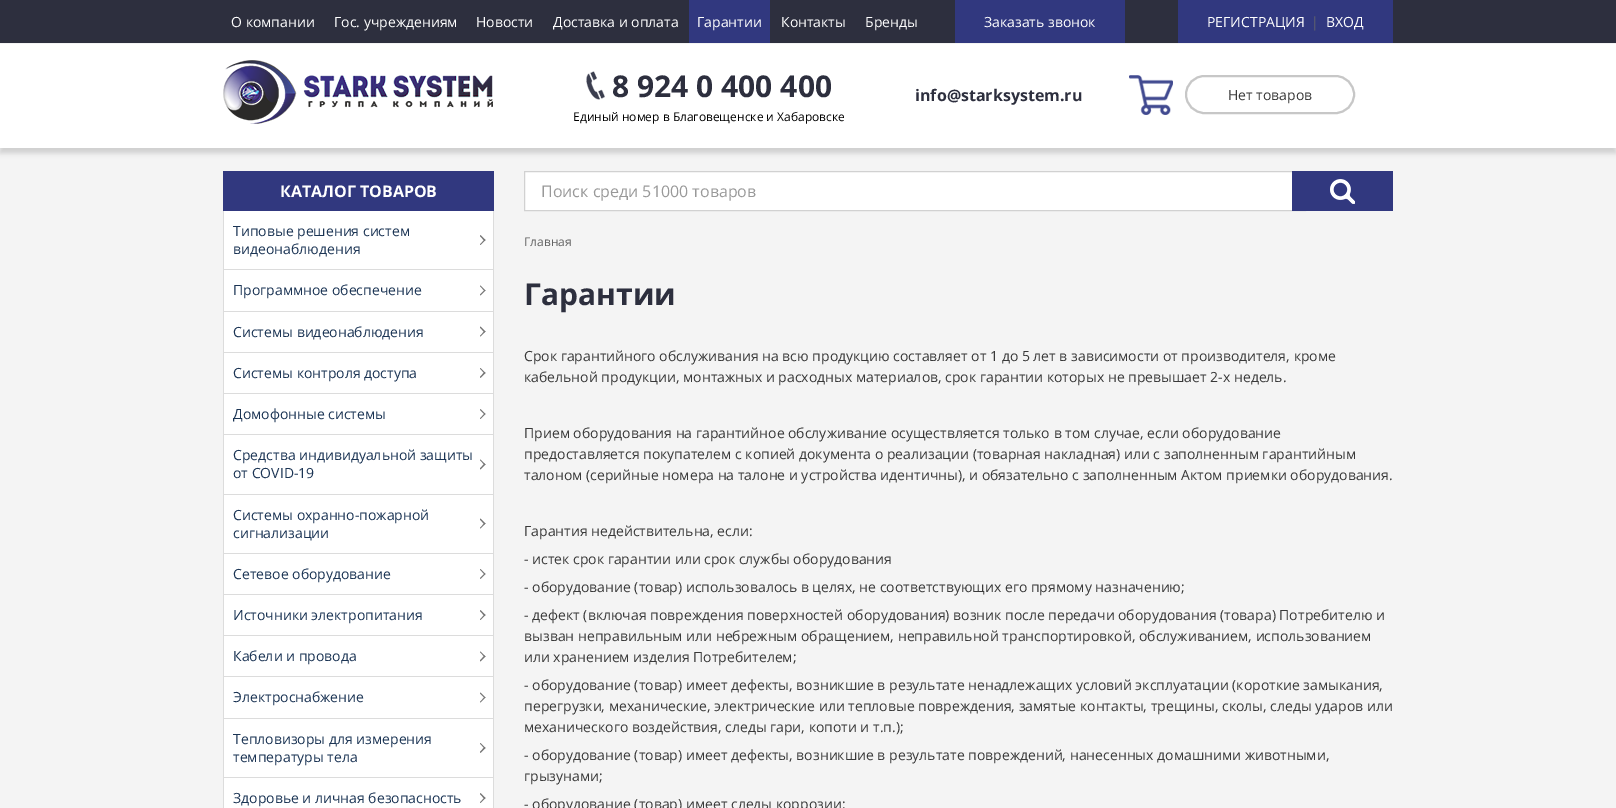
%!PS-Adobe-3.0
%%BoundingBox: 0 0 1616 808
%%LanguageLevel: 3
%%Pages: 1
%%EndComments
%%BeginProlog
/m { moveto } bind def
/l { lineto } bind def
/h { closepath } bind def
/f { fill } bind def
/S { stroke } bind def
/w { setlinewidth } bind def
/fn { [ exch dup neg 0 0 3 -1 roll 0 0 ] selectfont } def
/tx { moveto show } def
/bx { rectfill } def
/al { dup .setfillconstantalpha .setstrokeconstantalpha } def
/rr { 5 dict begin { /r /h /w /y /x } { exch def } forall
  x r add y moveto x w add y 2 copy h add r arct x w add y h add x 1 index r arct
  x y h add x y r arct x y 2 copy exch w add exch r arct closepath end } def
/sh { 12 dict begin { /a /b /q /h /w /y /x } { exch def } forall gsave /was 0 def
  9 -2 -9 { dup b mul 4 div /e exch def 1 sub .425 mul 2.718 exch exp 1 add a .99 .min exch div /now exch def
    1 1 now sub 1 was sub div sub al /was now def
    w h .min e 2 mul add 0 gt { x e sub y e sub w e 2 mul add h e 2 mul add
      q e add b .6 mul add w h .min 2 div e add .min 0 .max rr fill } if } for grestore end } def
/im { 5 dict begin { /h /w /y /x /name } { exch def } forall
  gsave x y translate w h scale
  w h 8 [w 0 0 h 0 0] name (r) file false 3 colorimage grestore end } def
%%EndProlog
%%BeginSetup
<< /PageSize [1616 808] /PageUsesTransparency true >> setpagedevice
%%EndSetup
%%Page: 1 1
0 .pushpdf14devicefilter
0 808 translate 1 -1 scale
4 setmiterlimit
0.957 setgray
0 0 1616 808 bx
0 0 0.008 setrgbcolor
0 49 1616 104 0 2.5 0.15 sh
0.176 0.184 0.243 setrgbcolor
0 0 1616 43 bx
/OpenSans-Regular 14 fn
1 setgray
(О компании) 231 27 tx
(Гос. учреждениям) 334 27 tx
(Новости) 476 27 tx
(Доставка и оплата) 553 27 tx
0.192 0.22 0.498 setrgbcolor
689 0 81 43 bx
1 setgray
(Гарантии) 697 27 tx
(Контакты) 781 27 tx
(Бренды) 865 27 tx
0.192 0.22 0.498 setrgbcolor
955 0 170 43 bx
1 setgray
(Заказать звонок) 984 27 tx
0.192 0.22 0.498 setrgbcolor
1178 0 215 43 bx
1 setgray
(РЕГИСТРАЦИЯ) 1207 27 tx
0.373 0.38 0.424 setrgbcolor
(|) 1311 27 tx
1 setgray
(ВХОД) 1326 27 tx
0 44 1616 104 bx
(image0.raw) 223 60 270 64 im
(image1.raw) 586 71 19 29 im
/OpenSans-Bold 30 fn
0.176 0.184 0.243 setrgbcolor
(8 924 0 400 400) 612 97 tx
/OpenSans-Regular 12 fn
0 setgray
(Единый номер в Благовещенске и Хабаровске) 573 121 tx
/OpenSans-Bold 16 fn
0.176 0.184 0.243 setrgbcolor
(info@starksystem.ru) 915 101 tx
(image2.raw) 1129 75 44 40 im
0.78 setgray
2 w
1186 76 168 37 18.5 rr S
/OpenSans-Regular 14 fn
0.224 setgray
(Нет товаров) 1228 100 tx
0.192 0.22 0.498 setrgbcolor
223 171 271 40 bx
/OpenSans-Bold 16 fn
1 setgray
(КАТАЛОГ ТОВАРОВ) 280 197 tx
224 211 269 597 bx
0.863 setgray
493 211 1 597 bx
223 269 271 1 bx
223 211 1 59 bx
/OpenSans-Regular 14 fn
0.106 0.204 0.329 setrgbcolor
(Типовые решения систем) 233 236 tx
(видеонаблюдения) 233 254 tx
0.459 setgray
480 236 m 480.5 235 l 485.5 240 l 484.5 241 l h f
480 244.5 m 484.5 239.5 l 485.5 240 l 480.5 245 l h f
0.863 setgray
223 311 271 1 bx
223 270 1 42 bx
0.106 0.204 0.329 setrgbcolor
(Программное обеспечение) 233 295 tx
0.459 setgray
480 286 m 480.5 285.5 l 485.5 290.5 l 484.5 291 l h f
480 294.5 m 484.5 290 l 485.5 290.5 l 480.5 295.5 l h f
0.863 setgray
223 352 271 1 bx
223 312 1 41 bx
0.106 0.204 0.329 setrgbcolor
(Системы видеонаблюдения) 233 337 tx
0.459 setgray
480 327.5 m 480.5 326.5 l 485.5 331.5 l 484.5 332.5 l h f
480 336 m 484.5 331 l 485.5 331.5 l 480.5 336.5 l h f
0.863 setgray
223 393 271 1 bx
223 353 1 41 bx
0.106 0.204 0.329 setrgbcolor
(Системы контроля доступа) 233 378 tx
0.459 setgray
480 368.5 m 480.5 368 l 485.5 373 l 484.5 373.5 l h f
480 377 m 484.5 372 l 485.5 373 l 480.5 378 l h f
0.863 setgray
223 434 271 1 bx
223 394 1 41 bx
0.106 0.204 0.329 setrgbcolor
(Домофонные системы) 233 419 tx
0.459 setgray
480 410 m 480.5 409 l 485.5 414 l 484.5 414.5 l h f
480 418.5 m 484.5 413.5 l 485.5 414 l 480.5 419 l h f
0.863 setgray
223 494 271 1 bx
223 435 1 60 bx
0.106 0.204 0.329 setrgbcolor
(Средства индивидуальной защиты) 233 460 tx
(от COVID-19) 233 478 tx
0.459 setgray
480 460 m 480.5 459.5 l 485.5 464.5 l 484.5 465 l h f
480 468.5 m 484.5 463.5 l 485.5 464.5 l 480.5 469.5 l h f
0.863 setgray
223 553 271 1 bx
223 495 1 59 bx
0.106 0.204 0.329 setrgbcolor
(Системы охранно-пожарной) 233 520 tx
(сигнализации) 233 538 tx
0.459 setgray
480 519.5 m 480.5 518.5 l 485.5 523.5 l 484.5 524.5 l h f
480 528 m 484.5 523 l 485.5 523.5 l 480.5 528.5 l h f
0.863 setgray
223 594 271 1 bx
223 554 1 41 bx
0.106 0.204 0.329 setrgbcolor
(Сетевое оборудование) 233 579 tx
0.459 setgray
480 569.5 m 480.5 569 l 485.5 574 l 484.5 574.5 l h f
480 578 m 484.5 573.5 l 485.5 574 l 480.5 579 l h f
0.863 setgray
223 635 271 1 bx
223 595 1 41 bx
0.106 0.204 0.329 setrgbcolor
(Источники электропитания) 233 620 tx
0.459 setgray
480 611 m 480.5 610 l 485.5 615 l 484.5 616 l h f
480 619.5 m 484.5 614.5 l 485.5 615 l 480.5 620 l h f
0.863 setgray
223 676 271 1 bx
223 636 1 41 bx
0.106 0.204 0.329 setrgbcolor
(Кабели и провода) 233 661 tx
0.459 setgray
480 652 m 480.5 651.5 l 485.5 656.5 l 484.5 657 l h f
480 660.5 m 484.5 655.5 l 485.5 656.5 l 480.5 661.5 l h f
0.863 setgray
223 718 271 1 bx
223 677 1 42 bx
0.106 0.204 0.329 setrgbcolor
(Электроснабжение) 233 702 tx
0.459 setgray
480 693.5 m 480.5 692.5 l 485.5 697.5 l 484.5 698 l h f
480 702 m 484.5 697 l 485.5 697.5 l 480.5 702.5 l h f
0.863 setgray
223 777 271 1 bx
223 719 1 89 bx
0.106 0.204 0.329 setrgbcolor
(Тепловизоры для измерения) 233 744 tx
(температуры тела) 233 762 tx
0.459 setgray
480 743.5 m 480.5 743 l 485.5 748 l 484.5 748.5 l h f
480 752 m 484.5 747 l 485.5 748 l 480.5 753 l h f
0.106 0.204 0.329 setrgbcolor
(Здоровье и личная безопасность) 233 803 tx
0.459 setgray
480 794 m 480.5 793 l 485.5 798 l 484.5 799 l h f
480 802.5 m 484.5 797.5 l 485.5 798 l 480.5 803 l h f
1 setgray
525 172 767 38 bx
0.82 setgray
1 w
524.5 171.5 781 39 rectstroke
/OpenSans-Regular 16 fn
0.6 setgray
(Поиск среди 51000 товаров) 541 197 tx
0.192 0.22 0.498 setrgbcolor
1292 171 101 40 bx
(image3.raw) 1330 179 25 25 im
/OpenSans-Regular 12 fn
0.388 setgray
(Главная) 524 246 tx
/OpenSans-Bold 30 fn
0.176 0.184 0.243 setrgbcolor
(Гарантии) 524 305 tx
/OpenSans-Regular 14 fn
0.224 setgray
(Срок гарантийного обслуживания на всю продукцию составляет от 1 до 5 лет в зависимости от производителя, кроме) 524 361 tx
(кабельной продукции, монтажных и расходных материалов, срок гарантии которых не превышает 2-х недель.) 524 382 tx
(Прием оборудования на гарантийное обслуживание осуществляется только в том случае, если оборудование) 524 438 tx
(предоставляется покупателем с копией документа о реализации \(товарная накладная\) или с заполненным гарантийным) 524 459 tx
(талоном \(серийные номера на талоне и устройства идентичны\), и обязательно с заполненным Актом приемки оборудования.) 524 480 tx
(Гарантия недействительна, если:) 524 536 tx
(- истек срок гарантии или срок службы оборудования) 524 564 tx
(- оборудование \(товар\) использовалось в целях, не соответствующих его прямому назначению;) 524 592 tx
(- дефект \(включая повреждения поверхностей оборудования\) возник после передачи оборудования \(товара\) Потребителю и) 524 620 tx
(вызван неправильным или небрежным обращением, неправильной транспортировкой, обслуживанием, использованием) 524 641 tx
(или хранением изделия Потребителем;) 524 662 tx
(- оборудование \(товар\) имеет дефекты, возникшие в результате ненадлежащих условий эксплуатации \(короткие замыкания,) 524 690 tx
(перегрузки, механические, электрические или тепловые повреждения, замятые контакты, трещины, сколы, следы ударов или) 524 711 tx
(механического воздействия, следы гари, копоти и т.п.\);) 524 732 tx
(- оборудование \(товар\) имеет дефекты, возникшие в результате повреждений, нанесенных домашними животными,) 524 760 tx
(грызунами;) 524 781 tx
(- оборудование \(товар\) имеет следы коррозии;) 524 809 tx
.poppdf14devicefilter showpage
%%EOF
